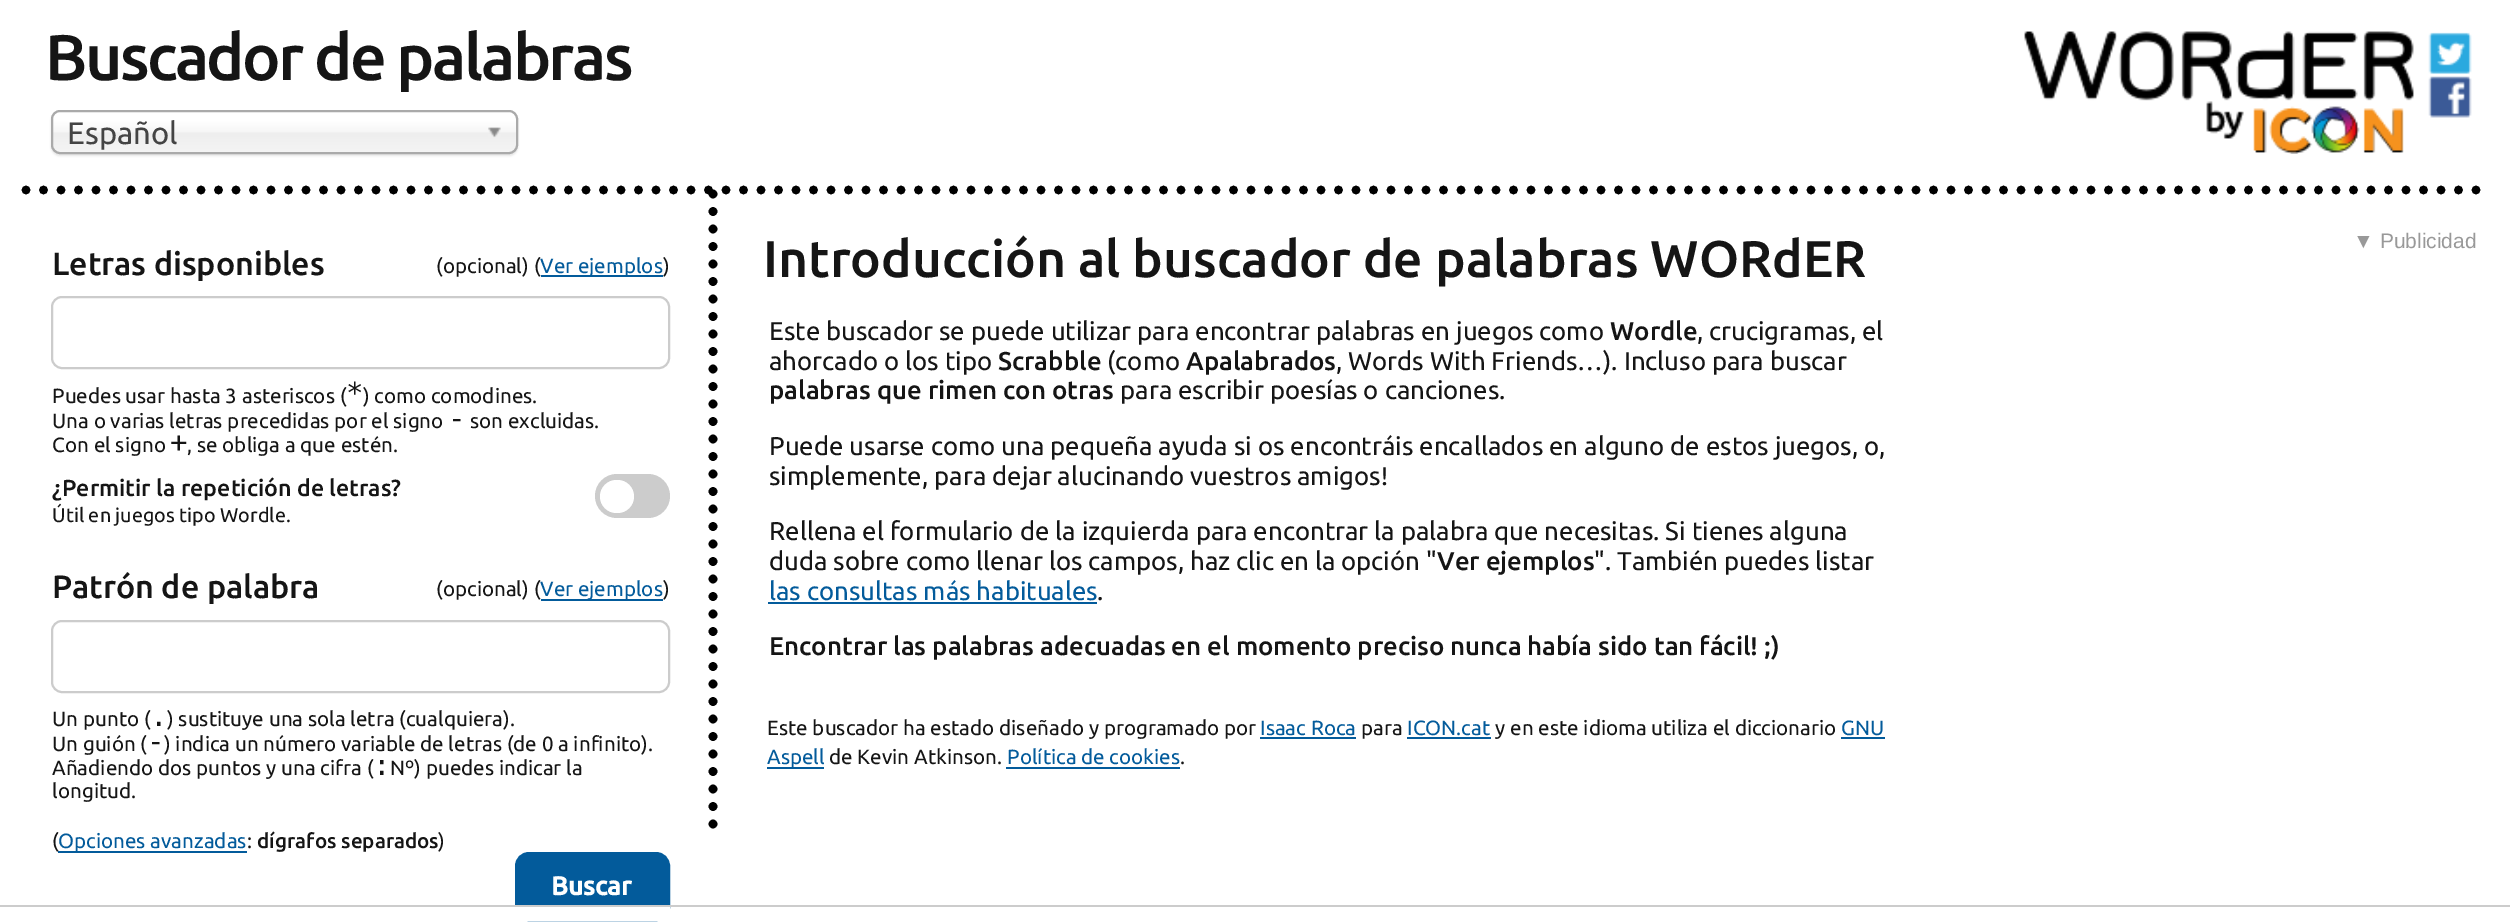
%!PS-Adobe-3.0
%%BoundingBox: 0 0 2510 923
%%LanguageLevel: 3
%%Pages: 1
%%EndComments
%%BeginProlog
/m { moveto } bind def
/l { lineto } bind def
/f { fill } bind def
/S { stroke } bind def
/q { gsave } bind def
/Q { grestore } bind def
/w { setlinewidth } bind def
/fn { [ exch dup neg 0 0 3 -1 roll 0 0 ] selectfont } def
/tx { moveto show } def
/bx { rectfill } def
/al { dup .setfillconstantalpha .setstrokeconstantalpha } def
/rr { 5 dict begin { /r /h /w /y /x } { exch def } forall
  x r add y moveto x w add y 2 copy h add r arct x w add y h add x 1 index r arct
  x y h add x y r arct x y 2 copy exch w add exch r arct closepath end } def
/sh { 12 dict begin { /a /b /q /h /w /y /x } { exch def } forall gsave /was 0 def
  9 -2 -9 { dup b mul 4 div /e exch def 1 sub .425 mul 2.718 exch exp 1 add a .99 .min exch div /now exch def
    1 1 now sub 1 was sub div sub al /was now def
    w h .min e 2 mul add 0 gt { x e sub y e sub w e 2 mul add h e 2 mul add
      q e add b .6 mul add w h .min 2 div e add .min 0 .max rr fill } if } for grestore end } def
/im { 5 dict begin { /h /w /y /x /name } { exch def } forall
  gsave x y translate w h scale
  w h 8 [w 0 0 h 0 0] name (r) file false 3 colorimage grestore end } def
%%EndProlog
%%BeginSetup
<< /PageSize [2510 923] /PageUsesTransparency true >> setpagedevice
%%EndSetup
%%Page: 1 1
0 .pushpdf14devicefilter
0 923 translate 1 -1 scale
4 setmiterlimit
1 setgray
0 0 2510 923 bx
0 setgray
8.8 w
1 setlinecap
[0 17.5] 0 setdash
26 190 m 2485 190 l S
/Ubuntu-Medium 64.5 fn
0.082 setgray
45 80 m -2.6 0 (Buscador de palabras) ashow
(image0.raw) 2024 31 390 123 im
(image1.raw) 2428 32 44 86 im
0 setgray
51 112 467 44 9 1 0.1 sh
q 53 112 463 40 7 rr clip newpath
<< /ShadingType 2 /ColorSpace /DeviceRGB /Coords [284 112 284 152] /Extend [true true] /Function << /FunctionType 3 /Domain [0 1] /Functions [<< /FunctionType 2 /Domain [0 1] /C0 [1 1 1] /C1 [1 1 1] /N 1 >> << /FunctionType 2 /Domain [0 1] /C0 [1 1 1] /C1 [0.965 0.965 0.965] /N 1 >> << /FunctionType 2 /Domain [0 1] /C0 [0.965 0.965 0.965] /C1 [0.933 0.933 0.933] /N 1 >> << /FunctionType 2 /Domain [0 1] /C0 [0.933 0.933 0.933] /C1 [0.957 0.957 0.957] /N 1 >>] /Bounds [0.2 0.5 0.52] /Encode [0 1 0 1 0 1 0 1] >> >> shfill Q
0.667 setgray
2 w
0 setlinecap
[] 0 setdash
52 111 465 42 8 rr S
/Ubuntu-Regular 31 fn
0.267 setgray
(Español) 67 144 tx
(image2.raw) 488 127 13 11 im
/Ubuntu-Medium 32.25 fn
0.082 setgray
(Letras disponibles) 52 275 tx
/Ubuntu-Regular 20.6 fn
(\(opcional\) \() 436 273 tx
0.012 0.357 0.608 setrgbcolor
541 275 122 2 bx
(Ver ejemplos) 540 273 tx
0.082 setgray
(\)) 663 273 tx
0.8 setgray
52 297 617 71 10 rr S
0.082 setgray
(Puedes usar hasta 3 asteriscos \() 52 403 tx
/DejaVuSansMono-Regular 29 fn
(*) 346 403 tx
/Ubuntu-Regular 20.6 fn
(\) como comodines.) 363 403 tx
(Una o varias letras precedidas por el signo) 52 428 tx
/DejaVuSansMono-Regular 29 fn
(-) 448 428 tx
/Ubuntu-Regular 20.6 fn
(son excluidas.) 470 428 tx
(Con el signo) 52 452 tx
/DejaVuSansMono-Regular 29 fn
(+) 170 452 tx
/Ubuntu-Regular 20.6 fn
(, se obliga a que estén.) 187 452 tx
/Ubuntu-Medium 23.2 fn
(¿Permitir la repetición de letras?) 52 496 tx
/Ubuntu-Regular 19.75 fn
(Útil en juegos tipo Wordle.) 52 522 tx
0.8 setgray
595 474 75 44 22 rr f
1 setgray
600 480 34 33 16.5 rr f
/Ubuntu-Medium 32.25 fn
0.082 setgray
(Patrón de palabra) 52 598 tx
/Ubuntu-Regular 20.6 fn
(\(opcional\) \() 436 596 tx
0.012 0.357 0.608 setrgbcolor
541 599 122 2 bx
(Ver ejemplos) 540 596 tx
0.082 setgray
(\)) 663 596 tx
0.8 setgray
52 621 617 71 10 rr S
0.082 setgray
(Un punto \() 52 726 tx
/DejaVuSansMono-Regular 29 fn
(.) 150 726 tx
/Ubuntu-Regular 20.6 fn
(\) sustituye una sola letra \(cualquiera\).) 167 726 tx
(Un guión \() 52 751 tx
/DejaVuSansMono-Regular 29 fn
(-) 147 751 tx
/Ubuntu-Regular 20.6 fn
(\) indica un número variable de letras \(de 0 a infinito\).) 164 751 tx
(Añadiendo dos puntos y una cifra \() 52 775 tx
/DejaVuSansMono-Regular 29 fn
(:) 373 775 tx
/Ubuntu-Regular 20.6 fn
(Nº\) puedes indicar la) 390 775 tx
(longitud.) 52 798 tx
(\() 52 848 tx
0.012 0.357 0.608 setrgbcolor
58 851 189 2 bx
(Opciones avanzadas) 58 848 tx
0.082 setgray
(:) 247 848 tx
/Ubuntu-Medium 20.6 fn
(dígrafos separados) 257 848 tx
/Ubuntu-Regular 20.6 fn
(\)) 438 848 tx
0.012 0.357 0.608 setrgbcolor
516 853 153 67 13 rr q f Q
S
/Ubuntu-Bold 26 fn
1 setgray
(Buscar) 551 895 tx
0 setgray
8.8 w
1 setlinecap
[0 17.5] 0 setdash
713 194 m 713 833 l S
/Ubuntu-Medium 51.5 fn
0.082 setgray
(Introducción al buscador de palabras WORdER) 763 277 tx
/Ubuntu-Regular 25.75 fn
(Este buscador se puede utilizar para encontrar palabras en juegos como) 769 340 tx
/Ubuntu-Medium 25.75 fn
(Wordle) 1610 340 tx
/Ubuntu-Regular 25.75 fn
(, crucigramas, el) 1697 340 tx
(ahorcado o los tipo) 769 370 tx
/Ubuntu-Medium 25.75 fn
(Scrabble) 998 370 tx
/Ubuntu-Regular 25.75 fn
(\(como) 1107 370 tx
/Ubuntu-Medium 25.75 fn
(Apalabrados) 1186 370 tx
/Ubuntu-Regular 25.75 fn
(, Words With Friends…\). Incluso para buscar) 1336 370 tx
/Ubuntu-Medium 25.75 fn
(palabras que rimen con otras) 769 399 tx
/Ubuntu-Regular 25.75 fn
(para escribir poesías o canciones.) 1120 399 tx
(Puede usarse como una pequeña ayuda si os encontráis encallados en alguno de estos juegos, o,) 769 455 tx
(simplemente, para dejar alucinando vuestros amigos!) 769 485 tx
(Rellena el formulario de la izquierda para encontrar la palabra que necesitas. Si tienes alguna) 769 540 tx
(duda sobre como llenar los campos, haz clic en la opción ") 769 570 tx
/Ubuntu-Medium 25.75 fn
(Ver ejemplos) 1437 570 tx
/Ubuntu-Regular 25.75 fn
(". También puedes listar) 1594 570 tx
0.012 0.357 0.608 setrgbcolor
(las consultas más habituales) 769 600 tx
768 602 329 2 bx
0.082 setgray
(.) 1097 600 tx
/Ubuntu-Medium 25.75 fn
(Encontrar las palabras adecuadas en el momento preciso nunca había sido tan fácil! ;\)) 769 655 tx
/LiberationSans-Regular 21 fn
0.6 setgray
(▼ Publicidad) 2353 248 tx
/Ubuntu-Regular 20.6 fn
0.082 setgray
(Este buscador ha estado diseñado y programado por) 767 735 tx
0.012 0.357 0.608 setrgbcolor
(Isaac Roca) 1260 735 tx
1260 737 96 2 bx
0.082 setgray
(para) 1361 735 tx
0.012 0.357 0.608 setrgbcolor
(ICON.cat) 1407 735 tx
1407 737 84 2 bx
0.082 setgray
(y en este idioma utiliza el diccionario) 1495 735 tx
0.012 0.357 0.608 setrgbcolor
(GNU) 1841 735 tx
1841 737 44 2 bx
767 767 57 2 bx
(Aspell) 767 764 tx
0.082 setgray
(de Kevin Atkinson.) 829 764 tx
0.012 0.357 0.608 setrgbcolor
(Política de cookies) 1007 764 tx
1006 767 174 2 bx
0.082 setgray
(.) 1180 764 tx
1 setgray
515 907 155 14 bx
0.8 setgray
0 905 2510 2 bx
.poppdf14devicefilter showpage
%%EOF
